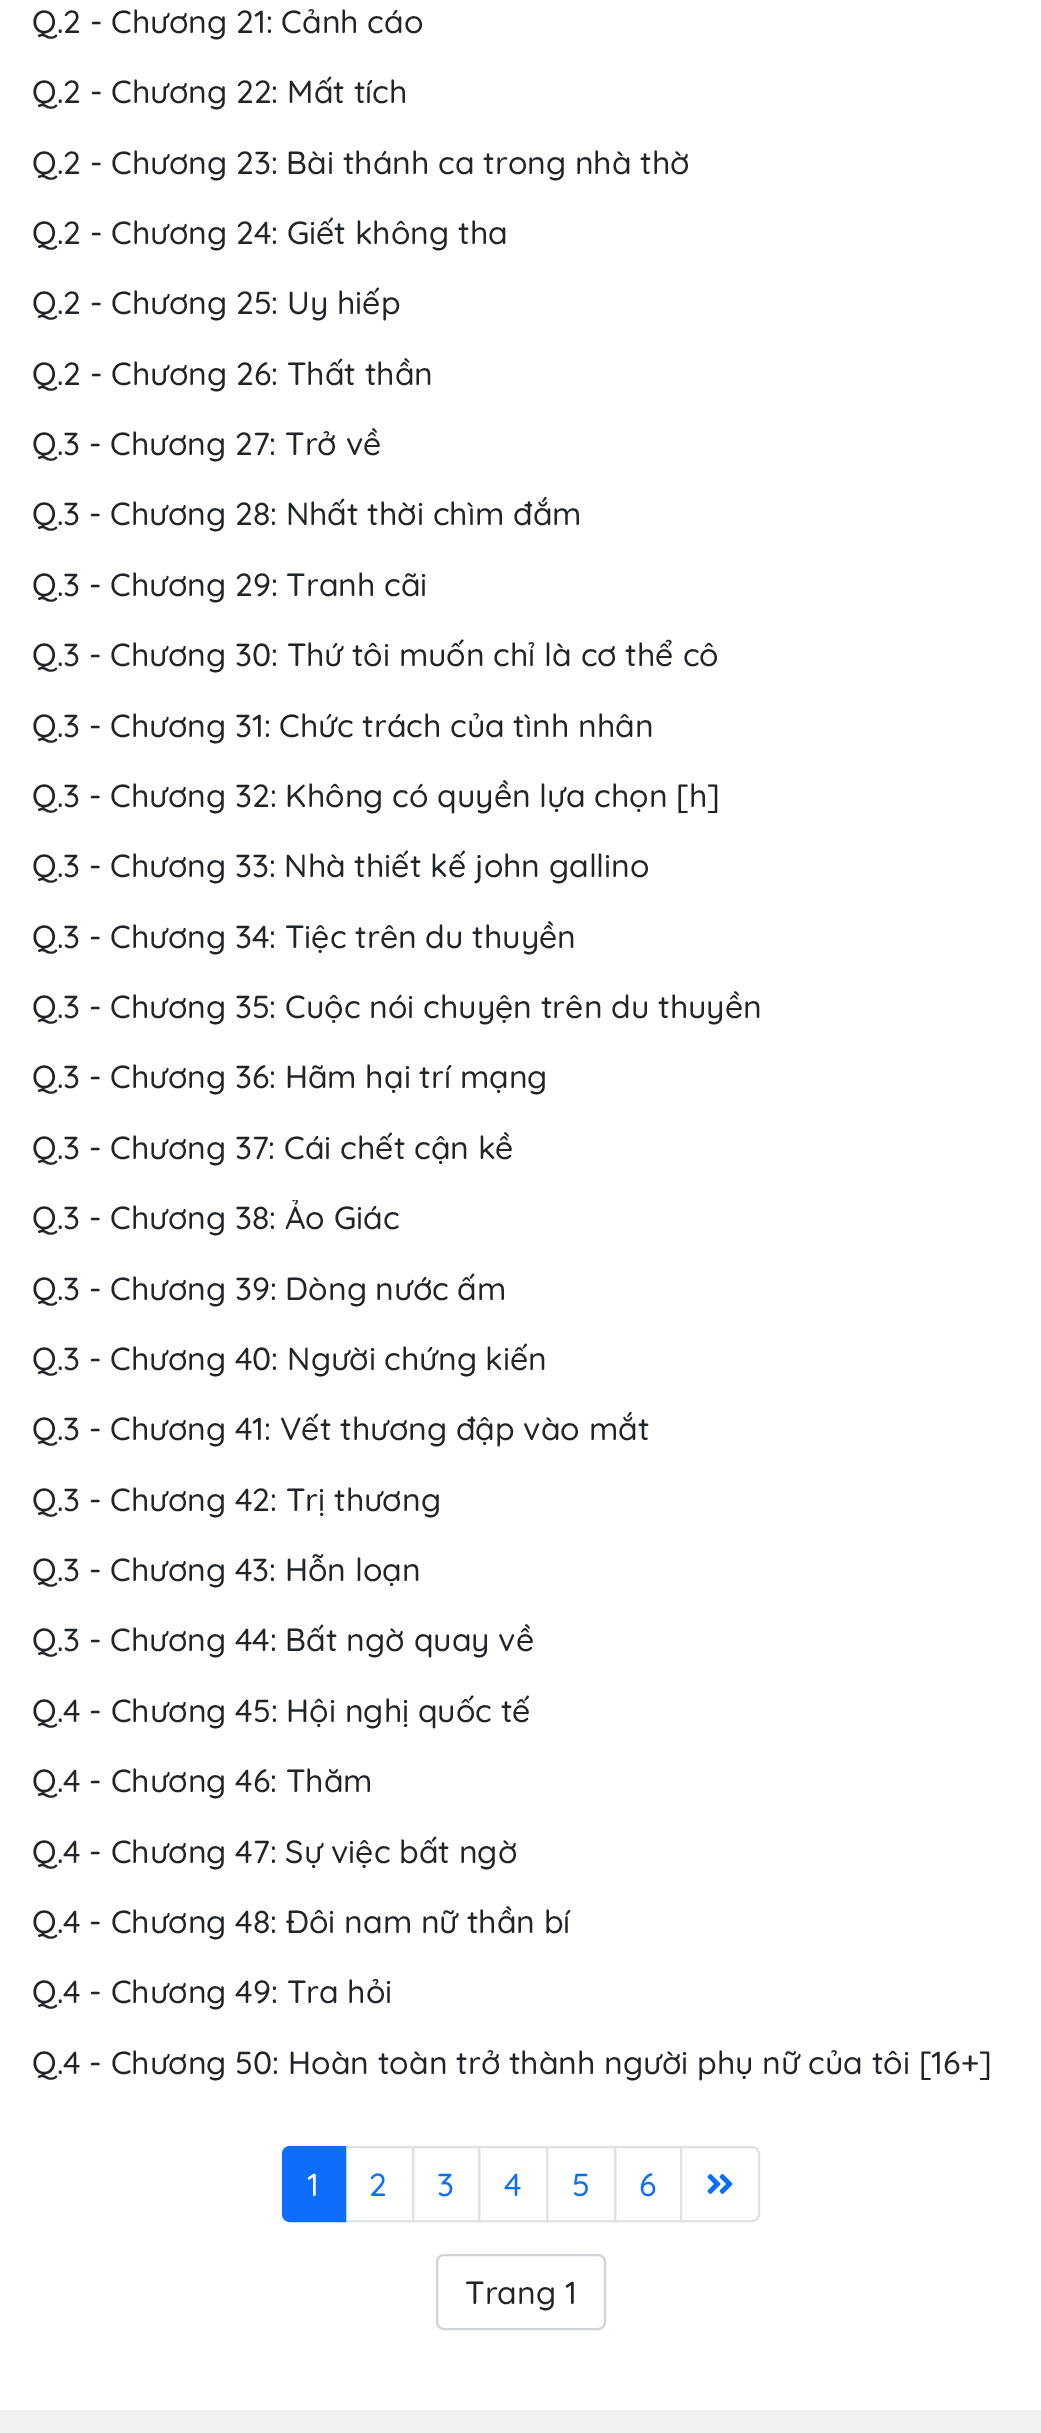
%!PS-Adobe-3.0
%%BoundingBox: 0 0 1041 2433
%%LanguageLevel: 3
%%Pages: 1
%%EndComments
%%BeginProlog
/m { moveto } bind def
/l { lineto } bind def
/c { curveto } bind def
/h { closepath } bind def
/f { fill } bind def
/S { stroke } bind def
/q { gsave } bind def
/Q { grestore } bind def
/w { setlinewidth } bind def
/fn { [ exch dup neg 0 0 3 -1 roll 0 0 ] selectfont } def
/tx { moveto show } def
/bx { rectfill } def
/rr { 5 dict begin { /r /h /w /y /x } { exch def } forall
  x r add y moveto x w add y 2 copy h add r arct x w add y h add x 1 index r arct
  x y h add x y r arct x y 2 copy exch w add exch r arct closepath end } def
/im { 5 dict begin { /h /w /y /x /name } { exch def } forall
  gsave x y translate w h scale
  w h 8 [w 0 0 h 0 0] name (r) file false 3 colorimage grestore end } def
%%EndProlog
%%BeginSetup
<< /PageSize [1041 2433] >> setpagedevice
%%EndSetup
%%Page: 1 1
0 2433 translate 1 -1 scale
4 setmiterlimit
0.941 setgray
0 0 1041 2433 bx
1 setgray
0 0 1041 2410 bx
/Quicksand-Medium 32 fn
0.129 0.145 0.161 setrgbcolor
(Q.2 - Chương 21: Cảnh cáo) 32 33 tx
(Q.2 - Chương 22: Mất tích) 32 103 tx
(Q.2 - Chương 23: Bài thánh ca trong nhà thờ) 32 174 tx
(Q.2 - Chương 24: Giết không tha) 32 244 tx
(Q.2 - Chương 25: Uy hiếp) 32 314 tx
(Q.2 - Chương 26: Thất thần) 32 385 tx
(Q.3 - Chương 27: Trở về) 32 455 tx
(Q.3 - Chương 28: Nhất thời chìm đắm) 32 525 tx
(Q.3 - Chương 29: Tranh cãi) 32 596 tx
(Q.3 - Chương 30: Thứ tôi muốn chỉ là cơ thể cô) 32 666 tx
(Q.3 - Chương 31: Chức trách của tình nhân) 32 737 tx
(Q.3 - Chương 32: Không có quyền lựa chọn [h]) 32 807 tx
(Q.3 - Chương 33: Nhà thiết kế john gallino) 32 877 tx
(Q.3 - Chương 34: Tiệc trên du thuyền) 32 948 tx
(Q.3 - Chương 35: Cuộc nói chuyện trên du thuyền) 32 1018 tx
(Q.3 - Chương 36: Hãm hại trí mạng) 32 1088 tx
(Q.3 - Chương 37: Cái chết cận kề) 32 1159 tx
q
32 1200 978 38 rectclip
(Q.3 - Chương 38: Ảo Giác) 32 1229 tx
Q
(Q.3 - Chương 39: Dòng nước ấm) 32 1300 tx
(Q.3 - Chương 40: Người chứng kiến) 32 1370 tx
(Q.3 - Chương 41: Vết thương đập vào mắt) 32 1440 tx
(Q.3 - Chương 42: Trị thương) 32 1511 tx
(Q.3 - Chương 43: Hỗn loạn) 32 1581 tx
(Q.3 - Chương 44: Bất ngờ quay về) 32 1651 tx
(Q.4 - Chương 45: Hội nghị quốc tế) 32 1722 tx
(Q.4 - Chương 46: Thăm) 32 1792 tx
(Q.4 - Chương 47: Sự việc bất ngờ) 32 1863 tx
(Q.4 - Chương 48: Đôi nam nữ thần bí) 32 1933 tx
(Q.4 - Chương 49: Tra hỏi) 32 2003 tx
(Q.4 - Chương 50: Hoàn toàn trở thành người phụ nữ của tôi [16+]) 32 2074 tx
0.871 0.886 0.902 setrgbcolor
2 w
345 2147 68 74 rectstroke
0.051 0.431 0.992 setrgbcolor
290 2147 m 345 2147 l 345 2221 l 290 2221 l 286 2221 283 2218 283 2214 c 283 2154 l 283 2150 286 2147 290 2147 c h q f Q
S
1 setgray
(1) 307 2196 tx
0.051 0.431 0.992 setrgbcolor
(2) 369 2196 tx
0.871 0.886 0.902 setrgbcolor
413 2147 66 74 rectstroke
0.051 0.431 0.992 setrgbcolor
(3) 437 2196 tx
0.871 0.886 0.902 setrgbcolor
479 2147 68 74 rectstroke
0.051 0.431 0.992 setrgbcolor
(4) 504 2196 tx
0.871 0.886 0.902 setrgbcolor
547 2147 68 74 rectstroke
0.051 0.431 0.992 setrgbcolor
(5) 572 2196 tx
0.871 0.886 0.902 setrgbcolor
615 2147 66 74 rectstroke
0.051 0.431 0.992 setrgbcolor
(6) 639 2196 tx
1 setgray
681 2147 m 752 2147 l 756 2147 759 2150 759 2154 c 759 2214 l 759 2218 756 2221 752 2221 c 681 2221 l h q f Q
0.871 0.886 0.902 setrgbcolor
S
(image0.raw) 707 2174 26 20 im
0.808 0.831 0.855 setrgbcolor
437 2255 168 74 7 rr S
0.129 0.145 0.161 setrgbcolor
(Trang 1) 465 2304 tx
showpage
%%EOF
